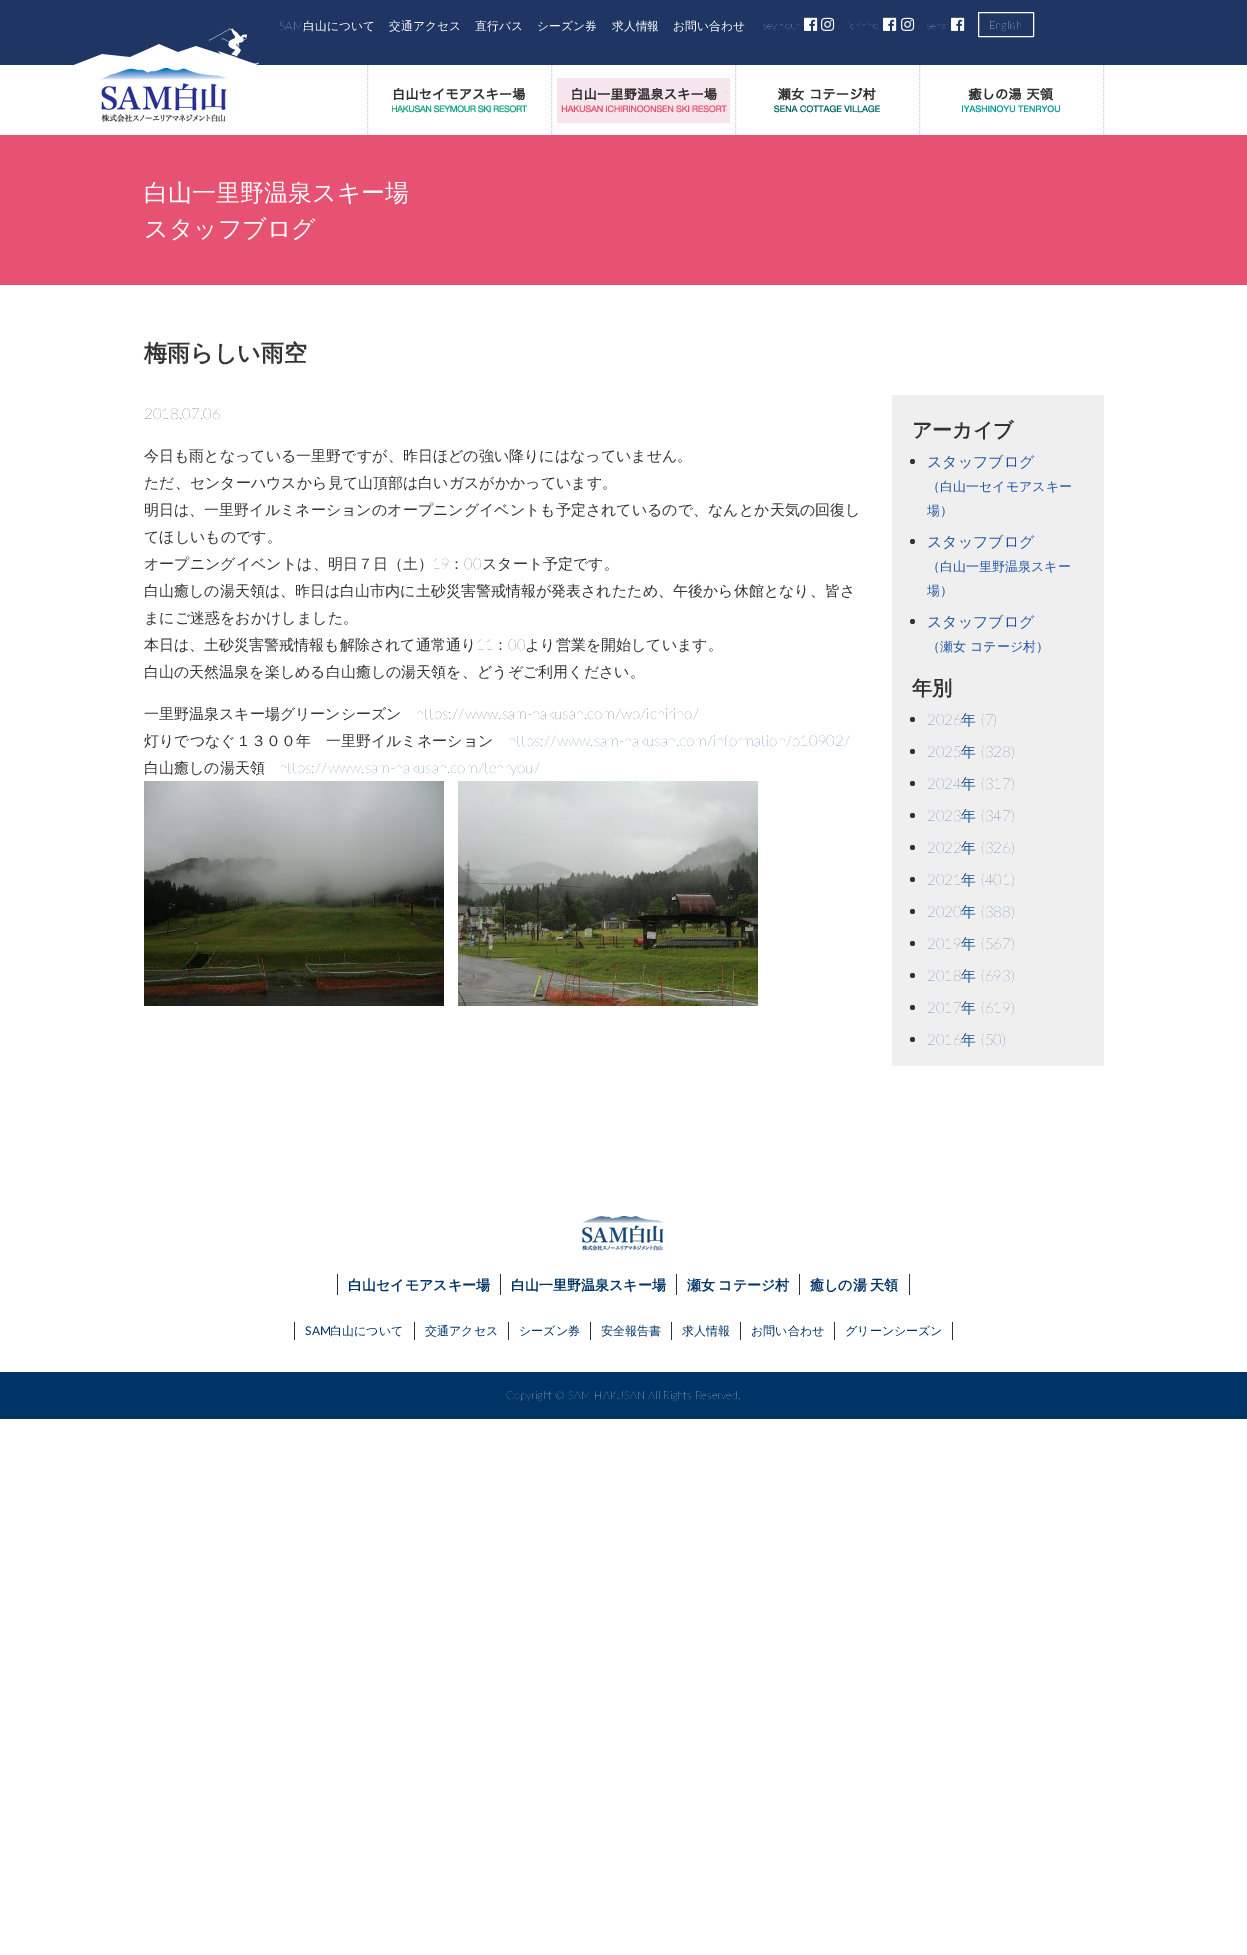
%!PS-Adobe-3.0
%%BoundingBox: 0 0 1247 1955
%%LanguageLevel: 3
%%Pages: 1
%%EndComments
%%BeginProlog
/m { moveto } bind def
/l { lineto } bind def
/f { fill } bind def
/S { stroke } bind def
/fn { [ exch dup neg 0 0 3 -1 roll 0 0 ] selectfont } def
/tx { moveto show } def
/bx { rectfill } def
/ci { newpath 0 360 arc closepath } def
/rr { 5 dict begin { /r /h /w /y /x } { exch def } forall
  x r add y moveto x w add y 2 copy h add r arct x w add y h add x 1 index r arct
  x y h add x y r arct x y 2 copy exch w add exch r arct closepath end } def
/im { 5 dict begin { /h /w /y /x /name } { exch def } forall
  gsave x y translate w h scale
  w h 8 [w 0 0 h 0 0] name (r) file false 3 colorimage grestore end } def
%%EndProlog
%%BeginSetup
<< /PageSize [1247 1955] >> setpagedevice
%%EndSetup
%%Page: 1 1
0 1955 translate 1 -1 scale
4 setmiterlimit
1 setgray
0 0 1247 1955 bx
0.122 0.212 0.392 setrgbcolor
0 0 1247 65 bx
/Lato-ExtraLight 11.75 fn
0.996 setgray
(SAM) 279 30 tx
/WenQuanYiZenHei-Medium 11.75 fn
(白山について) 303 30 tx
(交通アクセス) 389 30 tx
(直行バス) 475 30 tx
(シーズン券) 537 30 tx
(求人情報) 612 30 tx
(お問い合わせ) 673 30 tx
/Lato-ExtraLight 10 fn
(seymour) 763 29 tx
(image0.raw) 804 17 14 14 im
(image1.raw) 821 17 14 14 im
(ichirino) 848 29 tx
(image0.raw) 883 17 14 14 im
(image1.raw) 901 17 14 14 im
(sena) 927 29 tx
(image0.raw) 951 17 14 14 im
1 setgray
978.5 12.5 55 24 0.5 rr S
/Lato-ExtraLight 11 fn
0.996 setgray
(English) 989 29 tx
(image2.raw) 74 28 185 94 im
0.8 setgray
[1 1] 0 setdash
1103.5 65 m 1103.5 135 l S
367.5 65 m 367.5 135 l S
(image3.raw) 392 88 135 25 im
551.5 65 m 551.5 135 l S
0.965 0.898 0.925 setrgbcolor
557 78 173 45 bx
(image4.raw) 561 88 166 25 im
0.8 setgray
735.5 65 m 735.5 135 l S
(image5.raw) 774 88 106 25 im
919.5 65 m 919.5 135 l S
(image6.raw) 962 88 98 25 im
0.91 0.322 0.447 setrgbcolor
0 135 1247 150 bx
/WenQuanYiZenHei-Medium 24 fn
0.996 setgray
(白山一里野温泉スキー場) 144 201 tx
(スタッフブログ) 144 237 tx
/WenQuanYiZenHei-Bold 23 fn
0.2 setgray
(梅雨らしい雨空) 144 361 tx
/Lato-ExtraLight 15 fn
(2018.07.06) 144 419 tx
/WenQuanYiZenHei-Medium 15 fn
(今日も雨となっている一里野ですが、昨日ほどの強い降りにはなっていません。) 144 461 tx
(ただ、センターハウスから見て山頂部は白いガスがかかっています。) 144 488 tx
(明日は、一里野イルミネーションのオープニングイベントも予定されているので、なんとか天気の回復し) 144 515 tx
(てほしいものです。) 144 542 tx
(オープニングイベントは、明日７日（土）) 144 569 tx
/Lato-ExtraLight 15 fn
(19) 432 569 tx
/WenQuanYiZenHei-Medium 15 fn
(：) 449 569 tx
/Lato-ExtraLight 15 fn
(00) 464 569 tx
/WenQuanYiZenHei-Medium 15 fn
(スタート予定です。) 482 569 tx
(白山癒しの湯天領は、昨日は白山市内に土砂災害警戒情報が発表されたため、午後から休館となり、皆さ) 144 596 tx
(まにご迷惑をおかけしました。) 144 623 tx
(本日は、土砂災害警戒情報も解除されて通常通り) 144 650 tx
/Lato-ExtraLight 15 fn
(11) 476 650 tx
/WenQuanYiZenHei-Medium 15 fn
(：) 493 650 tx
/Lato-ExtraLight 15 fn
(00) 508 650 tx
/WenQuanYiZenHei-Medium 15 fn
(より営業を開始しています。) 525 650 tx
(白山の天然温泉を楽しめる白山癒しの湯天領を、どうぞご利用ください。) 144 677 tx
(一里野温泉スキー場グリーンシーズン) 144 719 tx
/Lato-ExtraLight 15 fn
(https://www.sam-hakusan.com/wp/ichirino/) 416 719 tx
/WenQuanYiZenHei-Medium 15 fn
(灯りでつなぐ１３００年　一里野イルミネーション) 144 746 tx
/Lato-ExtraLight 15 fn
0.137 0.337 0.62 setrgbcolor
(https://www.sam-hakusan.com/information/p10902/) 508 746 tx
/WenQuanYiZenHei-Medium 15 fn
0.2 setgray
(白山癒しの湯天領) 144 773 tx
/Lato-ExtraLight 15 fn
0.137 0.337 0.62 setrgbcolor
(https://www.sam-hakusan.com/tenryou/) 279 773 tx
(image7.raw) 144 781 300 225 im
(image8.raw) 458 781 300 225 im
0.937 setgray
892 395 212 671 bx
/WenQuanYiZenHei-Bold 20 fn
0.2 setgray
(アーカイブ) 912 437 tx
912.5 461.5 2.5 ci f
/WenQuanYiZenHei-Medium 15 fn
0.137 0.337 0.62 setrgbcolor
(スタッフブログ) 927 467 tx
/WenQuanYiZenHei-Medium 13 fn
(（白山一セイモアスキー) 927 491 tx
(場）) 927 515 tx
0.2 setgray
912.5 541.5 2.5 ci f
/WenQuanYiZenHei-Medium 15 fn
0.137 0.337 0.62 setrgbcolor
(スタッフブログ) 927 547 tx
/WenQuanYiZenHei-Medium 13 fn
(（白山一里野温泉スキー) 927 571 tx
(場）) 927 595 tx
0.2 setgray
912.5 621.5 2.5 ci f
/WenQuanYiZenHei-Medium 15 fn
0.137 0.337 0.62 setrgbcolor
(スタッフブログ) 927 627 tx
/WenQuanYiZenHei-Medium 13 fn
(（瀬女 コテージ村）) 927 651 tx
/WenQuanYiZenHei-Bold 20 fn
0.2 setgray
(年別) 912 695 tx
912.5 719.5 2.5 ci f
/Lato-ExtraLight 15 fn
0.137 0.337 0.62 setrgbcolor
(2026) 927 725 tx
/WenQuanYiZenHei-Medium 15 fn
(年) 961 725 tx
/Lato-ExtraLight 15 fn
(\(7\)) 981 725 tx
0.2 setgray
912.5 751.5 2.5 ci f
0.137 0.337 0.62 setrgbcolor
(2025) 927 757 tx
/WenQuanYiZenHei-Medium 15 fn
(年) 961 757 tx
/Lato-ExtraLight 15 fn
(\(328\)) 981 757 tx
0.2 setgray
912.5 783.5 2.5 ci f
0.137 0.337 0.62 setrgbcolor
(2024) 927 789 tx
/WenQuanYiZenHei-Medium 15 fn
(年) 961 789 tx
/Lato-ExtraLight 15 fn
(\(317\)) 981 789 tx
0.2 setgray
912.5 815.5 2.5 ci f
0.137 0.337 0.62 setrgbcolor
(2023) 927 821 tx
/WenQuanYiZenHei-Medium 15 fn
(年) 961 821 tx
/Lato-ExtraLight 15 fn
(\(347\)) 981 821 tx
0.2 setgray
912.5 847.5 2.5 ci f
0.137 0.337 0.62 setrgbcolor
(2022) 927 853 tx
/WenQuanYiZenHei-Medium 15 fn
(年) 961 853 tx
/Lato-ExtraLight 15 fn
(\(326\)) 981 853 tx
0.2 setgray
912.5 879.5 2.5 ci f
0.137 0.337 0.62 setrgbcolor
(2021) 927 885 tx
/WenQuanYiZenHei-Medium 15 fn
(年) 961 885 tx
/Lato-ExtraLight 15 fn
(\(401\)) 981 885 tx
0.2 setgray
912.5 911.5 2.5 ci f
0.137 0.337 0.62 setrgbcolor
(2020) 927 917 tx
/WenQuanYiZenHei-Medium 15 fn
(年) 961 917 tx
/Lato-ExtraLight 15 fn
(\(388\)) 981 917 tx
0.2 setgray
912.5 943.5 2.5 ci f
0.137 0.337 0.62 setrgbcolor
(2019) 927 949 tx
/WenQuanYiZenHei-Medium 15 fn
(年) 961 949 tx
/Lato-ExtraLight 15 fn
(\(567\)) 981 949 tx
0.2 setgray
912.5 975.5 2.5 ci f
0.137 0.337 0.62 setrgbcolor
(2018) 927 981 tx
/WenQuanYiZenHei-Medium 15 fn
(年) 961 981 tx
/Lato-ExtraLight 15 fn
(\(693\)) 981 981 tx
0.2 setgray
912.5 1007.5 2.5 ci f
0.137 0.337 0.62 setrgbcolor
(2017) 927 1013 tx
/WenQuanYiZenHei-Medium 15 fn
(年) 961 1013 tx
/Lato-ExtraLight 15 fn
(\(619\)) 981 1013 tx
0.2 setgray
912.5 1039.5 2.5 ci f
0.137 0.337 0.62 setrgbcolor
(2016) 927 1045 tx
/WenQuanYiZenHei-Medium 15 fn
(年) 961 1045 tx
/Lato-ExtraLight 15 fn
(\(50\)) 981 1045 tx
(image9.raw) 582 1216 82 35 im
0.2 setgray
500 1274 1 21 bx
337 1274 1 21 bx
/WenQuanYiZenHei-Bold 14 fn
0 0.2 0.4 setrgbcolor
(白山セイモアスキー場) 348 1290 tx
0.2 setgray
676 1274 1 21 bx
0 0.2 0.4 setrgbcolor
(白山一里野温泉スキー場) 511 1290 tx
0.2 setgray
799 1274 1 21 bx
0 0.2 0.4 setrgbcolor
687 1290 m -1 0 32 (瀬女 コテージ村) widthshow
0.2 setgray
909 1274 1 21 bx
0 0.2 0.4 setrgbcolor
810 1290 m -1 0 32 (癒しの湯 天領) widthshow
0.2 setgray
414 1322 1 18 bx
294 1322 1 18 bx
/Lato-Regular 12 fn
0 0.2 0.4 setrgbcolor
(SAM) 305 1335 tx
/WenQuanYiZenHei-Medium 12 fn
(白山について) 330 1335 tx
0.2 setgray
508 1322 1 18 bx
0 0.2 0.4 setrgbcolor
(交通アクセス) 425 1335 tx
0.2 setgray
590 1322 1 18 bx
0 0.2 0.4 setrgbcolor
(シーズン券) 519 1335 tx
0.2 setgray
671 1322 1 18 bx
0 0.2 0.4 setrgbcolor
(安全報告書) 601 1335 tx
0.2 setgray
740 1322 1 18 bx
0 0.2 0.4 setrgbcolor
(求人情報) 682 1335 tx
0.2 setgray
834 1322 1 18 bx
0 0.2 0.4 setrgbcolor
(お問い合わせ) 751 1335 tx
0.2 setgray
952 1322 1 18 bx
0 0.2 0.4 setrgbcolor
(グリーンシーズン) 845 1335 tx
0 1372 1247 47 bx
/Lato-ExtraLight 11 fn
0.996 setgray
(Copyright © SAM-HAKUSAN All Rights Reserved.) 506 1399 tx
showpage
%%EOF
